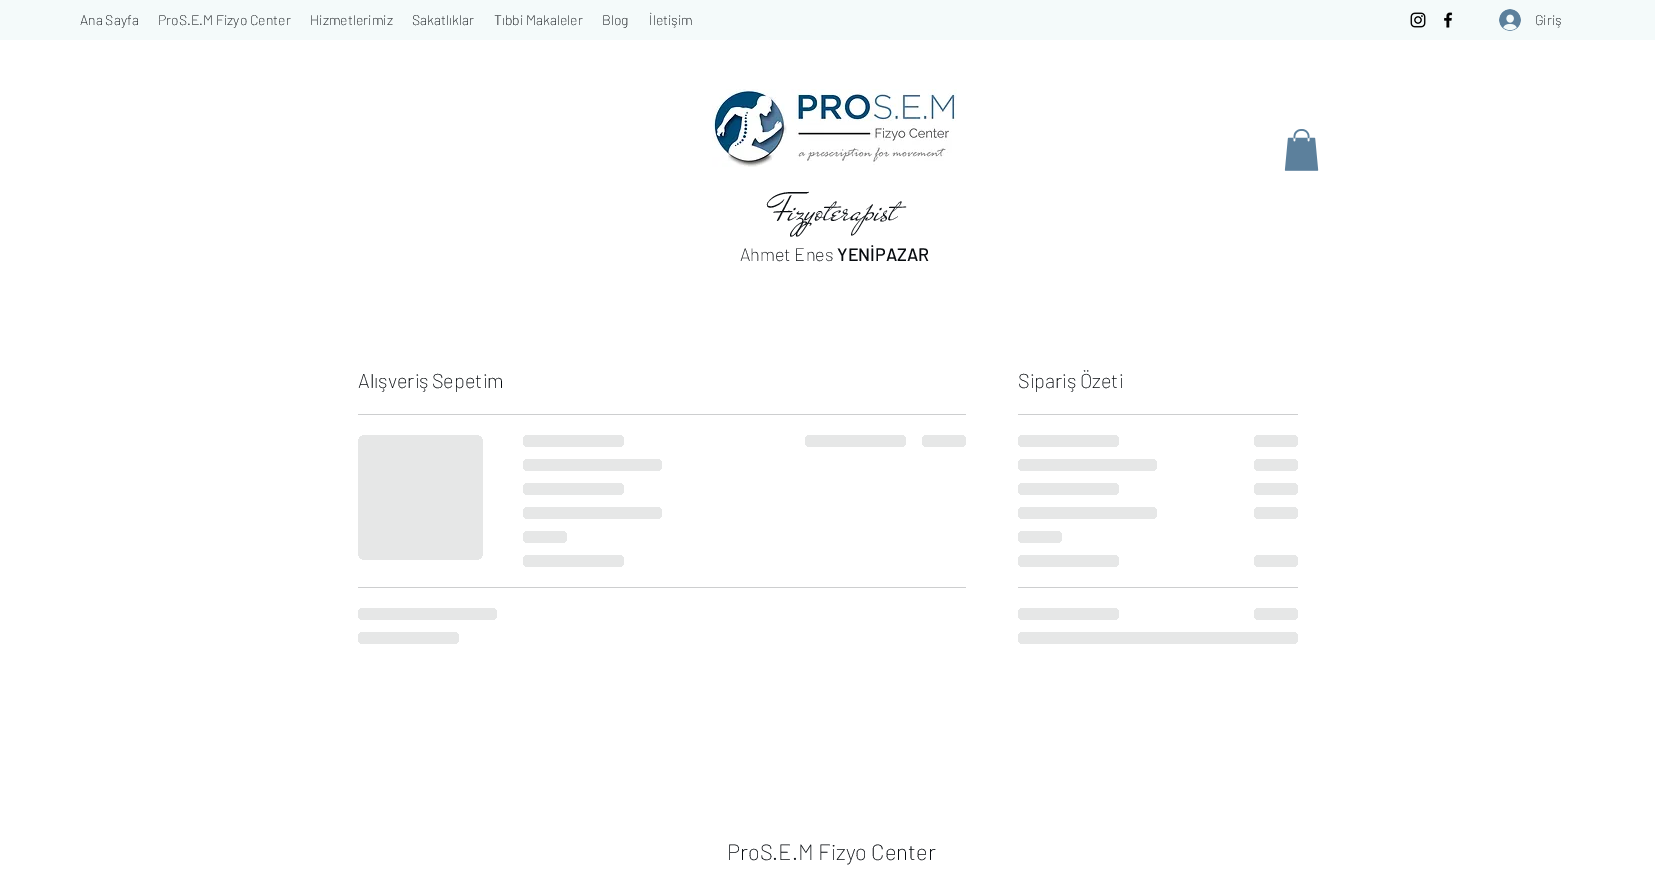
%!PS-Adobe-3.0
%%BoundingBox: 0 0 1655 875
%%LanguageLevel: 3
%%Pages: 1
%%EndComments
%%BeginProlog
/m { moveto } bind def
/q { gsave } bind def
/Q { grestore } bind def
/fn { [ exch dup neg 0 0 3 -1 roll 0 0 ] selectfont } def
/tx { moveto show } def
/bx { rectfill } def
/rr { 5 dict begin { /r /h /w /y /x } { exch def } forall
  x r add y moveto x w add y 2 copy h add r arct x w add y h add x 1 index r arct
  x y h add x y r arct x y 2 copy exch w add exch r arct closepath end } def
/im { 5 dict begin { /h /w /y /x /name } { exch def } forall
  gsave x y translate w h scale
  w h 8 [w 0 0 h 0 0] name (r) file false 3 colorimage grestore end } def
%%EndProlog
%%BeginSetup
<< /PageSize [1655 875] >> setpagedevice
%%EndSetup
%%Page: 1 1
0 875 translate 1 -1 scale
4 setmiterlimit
1 setgray
0 0 1655 875 bx
0.957 0.98 0.98 setrgbcolor
0 0 1655 40 bx
/Barlow-ExtraLight 14 fn
0.027 0.043 0.059 setrgbcolor
(Ana Sayfa) 80 25 tx
(ProS.E.M Fizyo Center) 158 25 tx
(Hizmetlerimiz) 310 25 tx
(Sakatlıklar) 412 25 tx
(Tıbbi Makaleler) 494 25 tx
(Blog) 602 25 tx
(İletişim) 649 25 tx
(image0.raw) 1410 12 16 16 im
(image1.raw) 1444 12 9 16 im
(image2.raw) 1499 9 22 22 im
(Giriş) 1535 25 tx
(image3.raw) 1284 129 35 42 im
(image4.raw) 712 89 245 78 im
/MrDeHaviland-Regular 40 fn
(Fizyoterapist) 772 220 tx
/Barlow-ExtraLight 18 fn
(Ahmet Enes) 740 261 tx
/Barlow-Medium 18 fn
(YENİPAZAR) 837 261 tx
0.804 0.808 0.812 setrgbcolor
358 414 608 1 bx
/Barlow-ExtraLight 20 fn
0.027 0.043 0.059 setrgbcolor
358 388 m -1 0 32 (Alışveriş Sepetim) widthshow
q 358 435 125 125 8 rr clip newpath
<< /ShadingType 2 /ColorSpace /DeviceRGB /Coords [358 498 858 498] /Extend [true true] /Function << /FunctionType 3 /Domain [0 1] /Functions [<< /FunctionType 2 /Domain [0 1] /C0 [0.902 0.906 0.906] /C1 [0.902 0.906 0.906] /N 1 >> << /FunctionType 2 /Domain [0 1] /C0 [0.902 0.906 0.906] /C1 [0.804 0.808 0.812] /N 1 >> << /FunctionType 2 /Domain [0 1] /C0 [0.804 0.808 0.812] /C1 [0.902 0.906 0.906] /N 1 >> << /FunctionType 2 /Domain [0 1] /C0 [0.902 0.906 0.906] /C1 [0.902 0.906 0.906] /N 1 >>] /Bounds [0.25 0.37 0.63] /Encode [0 1 0 1 0 1 0 1] >> >> shfill Q
q 523 435 101 12 6 rr clip newpath
<< /ShadingType 2 /ColorSpace /DeviceRGB /Coords [523 441 927 441] /Extend [true true] /Function << /FunctionType 3 /Domain [0 1] /Functions [<< /FunctionType 2 /Domain [0 1] /C0 [0.902 0.906 0.906] /C1 [0.902 0.906 0.906] /N 1 >> << /FunctionType 2 /Domain [0 1] /C0 [0.902 0.906 0.906] /C1 [0.804 0.808 0.812] /N 1 >> << /FunctionType 2 /Domain [0 1] /C0 [0.804 0.808 0.812] /C1 [0.902 0.906 0.906] /N 1 >> << /FunctionType 2 /Domain [0 1] /C0 [0.902 0.906 0.906] /C1 [0.902 0.906 0.906] /N 1 >>] /Bounds [0.25 0.37 0.63] /Encode [0 1 0 1 0 1 0 1] >> >> shfill Q
q 523 459 139 12 6 rr clip newpath
<< /ShadingType 2 /ColorSpace /DeviceRGB /Coords [523 465 1079 465] /Extend [true true] /Function << /FunctionType 3 /Domain [0 1] /Functions [<< /FunctionType 2 /Domain [0 1] /C0 [0.902 0.906 0.906] /C1 [0.902 0.906 0.906] /N 1 >> << /FunctionType 2 /Domain [0 1] /C0 [0.902 0.906 0.906] /C1 [0.804 0.808 0.812] /N 1 >> << /FunctionType 2 /Domain [0 1] /C0 [0.804 0.808 0.812] /C1 [0.902 0.906 0.906] /N 1 >> << /FunctionType 2 /Domain [0 1] /C0 [0.902 0.906 0.906] /C1 [0.902 0.906 0.906] /N 1 >>] /Bounds [0.25 0.37 0.63] /Encode [0 1 0 1 0 1 0 1] >> >> shfill Q
q 523 483 101 12 6 rr clip newpath
<< /ShadingType 2 /ColorSpace /DeviceRGB /Coords [523 489 927 489] /Extend [true true] /Function << /FunctionType 3 /Domain [0 1] /Functions [<< /FunctionType 2 /Domain [0 1] /C0 [0.902 0.906 0.906] /C1 [0.902 0.906 0.906] /N 1 >> << /FunctionType 2 /Domain [0 1] /C0 [0.902 0.906 0.906] /C1 [0.804 0.808 0.812] /N 1 >> << /FunctionType 2 /Domain [0 1] /C0 [0.804 0.808 0.812] /C1 [0.902 0.906 0.906] /N 1 >> << /FunctionType 2 /Domain [0 1] /C0 [0.902 0.906 0.906] /C1 [0.902 0.906 0.906] /N 1 >>] /Bounds [0.25 0.37 0.63] /Encode [0 1 0 1 0 1 0 1] >> >> shfill Q
q 523 507 139 12 6 rr clip newpath
<< /ShadingType 2 /ColorSpace /DeviceRGB /Coords [523 513 1079 513] /Extend [true true] /Function << /FunctionType 3 /Domain [0 1] /Functions [<< /FunctionType 2 /Domain [0 1] /C0 [0.902 0.906 0.906] /C1 [0.902 0.906 0.906] /N 1 >> << /FunctionType 2 /Domain [0 1] /C0 [0.902 0.906 0.906] /C1 [0.804 0.808 0.812] /N 1 >> << /FunctionType 2 /Domain [0 1] /C0 [0.804 0.808 0.812] /C1 [0.902 0.906 0.906] /N 1 >> << /FunctionType 2 /Domain [0 1] /C0 [0.902 0.906 0.906] /C1 [0.902 0.906 0.906] /N 1 >>] /Bounds [0.25 0.37 0.63] /Encode [0 1 0 1 0 1 0 1] >> >> shfill Q
q 523 531 44 12 6 rr clip newpath
<< /ShadingType 2 /ColorSpace /DeviceRGB /Coords [523 537 699 537] /Extend [true true] /Function << /FunctionType 3 /Domain [0 1] /Functions [<< /FunctionType 2 /Domain [0 1] /C0 [0.902 0.906 0.906] /C1 [0.902 0.906 0.906] /N 1 >> << /FunctionType 2 /Domain [0 1] /C0 [0.902 0.906 0.906] /C1 [0.804 0.808 0.812] /N 1 >> << /FunctionType 2 /Domain [0 1] /C0 [0.804 0.808 0.812] /C1 [0.902 0.906 0.906] /N 1 >> << /FunctionType 2 /Domain [0 1] /C0 [0.902 0.906 0.906] /C1 [0.902 0.906 0.906] /N 1 >>] /Bounds [0.25 0.37 0.63] /Encode [0 1 0 1 0 1 0 1] >> >> shfill Q
q 523 555 101 12 6 rr clip newpath
<< /ShadingType 2 /ColorSpace /DeviceRGB /Coords [523 561 927 561] /Extend [true true] /Function << /FunctionType 3 /Domain [0 1] /Functions [<< /FunctionType 2 /Domain [0 1] /C0 [0.902 0.906 0.906] /C1 [0.902 0.906 0.906] /N 1 >> << /FunctionType 2 /Domain [0 1] /C0 [0.902 0.906 0.906] /C1 [0.804 0.808 0.812] /N 1 >> << /FunctionType 2 /Domain [0 1] /C0 [0.804 0.808 0.812] /C1 [0.902 0.906 0.906] /N 1 >> << /FunctionType 2 /Domain [0 1] /C0 [0.902 0.906 0.906] /C1 [0.902 0.906 0.906] /N 1 >>] /Bounds [0.25 0.37 0.63] /Encode [0 1 0 1 0 1 0 1] >> >> shfill Q
q 805 435 101 12 6 rr clip newpath
<< /ShadingType 2 /ColorSpace /DeviceRGB /Coords [805 441 1209 441] /Extend [true true] /Function << /FunctionType 3 /Domain [0 1] /Functions [<< /FunctionType 2 /Domain [0 1] /C0 [0.902 0.906 0.906] /C1 [0.902 0.906 0.906] /N 1 >> << /FunctionType 2 /Domain [0 1] /C0 [0.902 0.906 0.906] /C1 [0.804 0.808 0.812] /N 1 >> << /FunctionType 2 /Domain [0 1] /C0 [0.804 0.808 0.812] /C1 [0.902 0.906 0.906] /N 1 >> << /FunctionType 2 /Domain [0 1] /C0 [0.902 0.906 0.906] /C1 [0.902 0.906 0.906] /N 1 >>] /Bounds [0.25 0.37 0.63] /Encode [0 1 0 1 0 1 0 1] >> >> shfill Q
q 922 435 44 12 6 rr clip newpath
<< /ShadingType 2 /ColorSpace /DeviceRGB /Coords [922 441 1098 441] /Extend [true true] /Function << /FunctionType 3 /Domain [0 1] /Functions [<< /FunctionType 2 /Domain [0 1] /C0 [0.902 0.906 0.906] /C1 [0.902 0.906 0.906] /N 1 >> << /FunctionType 2 /Domain [0 1] /C0 [0.902 0.906 0.906] /C1 [0.804 0.808 0.812] /N 1 >> << /FunctionType 2 /Domain [0 1] /C0 [0.804 0.808 0.812] /C1 [0.902 0.906 0.906] /N 1 >> << /FunctionType 2 /Domain [0 1] /C0 [0.902 0.906 0.906] /C1 [0.902 0.906 0.906] /N 1 >>] /Bounds [0.25 0.37 0.63] /Encode [0 1 0 1 0 1 0 1] >> >> shfill Q
0.804 0.808 0.812 setrgbcolor
358 587 608 1 bx
q 358 608 139 12 6 rr clip newpath
<< /ShadingType 2 /ColorSpace /DeviceRGB /Coords [358 614 914 614] /Extend [true true] /Function << /FunctionType 3 /Domain [0 1] /Functions [<< /FunctionType 2 /Domain [0 1] /C0 [0.902 0.906 0.906] /C1 [0.902 0.906 0.906] /N 1 >> << /FunctionType 2 /Domain [0 1] /C0 [0.902 0.906 0.906] /C1 [0.804 0.808 0.812] /N 1 >> << /FunctionType 2 /Domain [0 1] /C0 [0.804 0.808 0.812] /C1 [0.902 0.906 0.906] /N 1 >> << /FunctionType 2 /Domain [0 1] /C0 [0.902 0.906 0.906] /C1 [0.902 0.906 0.906] /N 1 >>] /Bounds [0.25 0.37 0.63] /Encode [0 1 0 1 0 1 0 1] >> >> shfill Q
q 358 632 101 12 6 rr clip newpath
<< /ShadingType 2 /ColorSpace /DeviceRGB /Coords [358 638 762 638] /Extend [true true] /Function << /FunctionType 3 /Domain [0 1] /Functions [<< /FunctionType 2 /Domain [0 1] /C0 [0.902 0.906 0.906] /C1 [0.902 0.906 0.906] /N 1 >> << /FunctionType 2 /Domain [0 1] /C0 [0.902 0.906 0.906] /C1 [0.804 0.808 0.812] /N 1 >> << /FunctionType 2 /Domain [0 1] /C0 [0.804 0.808 0.812] /C1 [0.902 0.906 0.906] /N 1 >> << /FunctionType 2 /Domain [0 1] /C0 [0.902 0.906 0.906] /C1 [0.902 0.906 0.906] /N 1 >>] /Bounds [0.25 0.37 0.63] /Encode [0 1 0 1 0 1 0 1] >> >> shfill Q
1018 414 280 1 bx
0.027 0.043 0.059 setrgbcolor
1018 388 m -1 0 32 (Sipariş Özeti) widthshow
q 1018 435 101 12 6 rr clip newpath
<< /ShadingType 2 /ColorSpace /DeviceRGB /Coords [1018 441 1422 441] /Extend [true true] /Function << /FunctionType 3 /Domain [0 1] /Functions [<< /FunctionType 2 /Domain [0 1] /C0 [0.902 0.906 0.906] /C1 [0.902 0.906 0.906] /N 1 >> << /FunctionType 2 /Domain [0 1] /C0 [0.902 0.906 0.906] /C1 [0.804 0.808 0.812] /N 1 >> << /FunctionType 2 /Domain [0 1] /C0 [0.804 0.808 0.812] /C1 [0.902 0.906 0.906] /N 1 >> << /FunctionType 2 /Domain [0 1] /C0 [0.902 0.906 0.906] /C1 [0.902 0.906 0.906] /N 1 >>] /Bounds [0.25 0.37 0.63] /Encode [0 1 0 1 0 1 0 1] >> >> shfill Q
q 1254 435 44 12 6 rr clip newpath
<< /ShadingType 2 /ColorSpace /DeviceRGB /Coords [1254 441 1430 441] /Extend [true true] /Function << /FunctionType 3 /Domain [0 1] /Functions [<< /FunctionType 2 /Domain [0 1] /C0 [0.902 0.906 0.906] /C1 [0.902 0.906 0.906] /N 1 >> << /FunctionType 2 /Domain [0 1] /C0 [0.902 0.906 0.906] /C1 [0.804 0.808 0.812] /N 1 >> << /FunctionType 2 /Domain [0 1] /C0 [0.804 0.808 0.812] /C1 [0.902 0.906 0.906] /N 1 >> << /FunctionType 2 /Domain [0 1] /C0 [0.902 0.906 0.906] /C1 [0.902 0.906 0.906] /N 1 >>] /Bounds [0.25 0.37 0.63] /Encode [0 1 0 1 0 1 0 1] >> >> shfill Q
q 1018 459 139 12 6 rr clip newpath
<< /ShadingType 2 /ColorSpace /DeviceRGB /Coords [1018 465 1574 465] /Extend [true true] /Function << /FunctionType 3 /Domain [0 1] /Functions [<< /FunctionType 2 /Domain [0 1] /C0 [0.902 0.906 0.906] /C1 [0.902 0.906 0.906] /N 1 >> << /FunctionType 2 /Domain [0 1] /C0 [0.902 0.906 0.906] /C1 [0.804 0.808 0.812] /N 1 >> << /FunctionType 2 /Domain [0 1] /C0 [0.804 0.808 0.812] /C1 [0.902 0.906 0.906] /N 1 >> << /FunctionType 2 /Domain [0 1] /C0 [0.902 0.906 0.906] /C1 [0.902 0.906 0.906] /N 1 >>] /Bounds [0.25 0.37 0.63] /Encode [0 1 0 1 0 1 0 1] >> >> shfill Q
q 1254 459 44 12 6 rr clip newpath
<< /ShadingType 2 /ColorSpace /DeviceRGB /Coords [1254 465 1430 465] /Extend [true true] /Function << /FunctionType 3 /Domain [0 1] /Functions [<< /FunctionType 2 /Domain [0 1] /C0 [0.902 0.906 0.906] /C1 [0.902 0.906 0.906] /N 1 >> << /FunctionType 2 /Domain [0 1] /C0 [0.902 0.906 0.906] /C1 [0.804 0.808 0.812] /N 1 >> << /FunctionType 2 /Domain [0 1] /C0 [0.804 0.808 0.812] /C1 [0.902 0.906 0.906] /N 1 >> << /FunctionType 2 /Domain [0 1] /C0 [0.902 0.906 0.906] /C1 [0.902 0.906 0.906] /N 1 >>] /Bounds [0.25 0.37 0.63] /Encode [0 1 0 1 0 1 0 1] >> >> shfill Q
q 1018 483 101 12 6 rr clip newpath
<< /ShadingType 2 /ColorSpace /DeviceRGB /Coords [1018 489 1422 489] /Extend [true true] /Function << /FunctionType 3 /Domain [0 1] /Functions [<< /FunctionType 2 /Domain [0 1] /C0 [0.902 0.906 0.906] /C1 [0.902 0.906 0.906] /N 1 >> << /FunctionType 2 /Domain [0 1] /C0 [0.902 0.906 0.906] /C1 [0.804 0.808 0.812] /N 1 >> << /FunctionType 2 /Domain [0 1] /C0 [0.804 0.808 0.812] /C1 [0.902 0.906 0.906] /N 1 >> << /FunctionType 2 /Domain [0 1] /C0 [0.902 0.906 0.906] /C1 [0.902 0.906 0.906] /N 1 >>] /Bounds [0.25 0.37 0.63] /Encode [0 1 0 1 0 1 0 1] >> >> shfill Q
q 1254 483 44 12 6 rr clip newpath
<< /ShadingType 2 /ColorSpace /DeviceRGB /Coords [1254 489 1430 489] /Extend [true true] /Function << /FunctionType 3 /Domain [0 1] /Functions [<< /FunctionType 2 /Domain [0 1] /C0 [0.902 0.906 0.906] /C1 [0.902 0.906 0.906] /N 1 >> << /FunctionType 2 /Domain [0 1] /C0 [0.902 0.906 0.906] /C1 [0.804 0.808 0.812] /N 1 >> << /FunctionType 2 /Domain [0 1] /C0 [0.804 0.808 0.812] /C1 [0.902 0.906 0.906] /N 1 >> << /FunctionType 2 /Domain [0 1] /C0 [0.902 0.906 0.906] /C1 [0.902 0.906 0.906] /N 1 >>] /Bounds [0.25 0.37 0.63] /Encode [0 1 0 1 0 1 0 1] >> >> shfill Q
q 1018 507 139 12 6 rr clip newpath
<< /ShadingType 2 /ColorSpace /DeviceRGB /Coords [1018 513 1574 513] /Extend [true true] /Function << /FunctionType 3 /Domain [0 1] /Functions [<< /FunctionType 2 /Domain [0 1] /C0 [0.902 0.906 0.906] /C1 [0.902 0.906 0.906] /N 1 >> << /FunctionType 2 /Domain [0 1] /C0 [0.902 0.906 0.906] /C1 [0.804 0.808 0.812] /N 1 >> << /FunctionType 2 /Domain [0 1] /C0 [0.804 0.808 0.812] /C1 [0.902 0.906 0.906] /N 1 >> << /FunctionType 2 /Domain [0 1] /C0 [0.902 0.906 0.906] /C1 [0.902 0.906 0.906] /N 1 >>] /Bounds [0.25 0.37 0.63] /Encode [0 1 0 1 0 1 0 1] >> >> shfill Q
q 1254 507 44 12 6 rr clip newpath
<< /ShadingType 2 /ColorSpace /DeviceRGB /Coords [1254 513 1430 513] /Extend [true true] /Function << /FunctionType 3 /Domain [0 1] /Functions [<< /FunctionType 2 /Domain [0 1] /C0 [0.902 0.906 0.906] /C1 [0.902 0.906 0.906] /N 1 >> << /FunctionType 2 /Domain [0 1] /C0 [0.902 0.906 0.906] /C1 [0.804 0.808 0.812] /N 1 >> << /FunctionType 2 /Domain [0 1] /C0 [0.804 0.808 0.812] /C1 [0.902 0.906 0.906] /N 1 >> << /FunctionType 2 /Domain [0 1] /C0 [0.902 0.906 0.906] /C1 [0.902 0.906 0.906] /N 1 >>] /Bounds [0.25 0.37 0.63] /Encode [0 1 0 1 0 1 0 1] >> >> shfill Q
q 1018 531 44 12 6 rr clip newpath
<< /ShadingType 2 /ColorSpace /DeviceRGB /Coords [1018 537 1194 537] /Extend [true true] /Function << /FunctionType 3 /Domain [0 1] /Functions [<< /FunctionType 2 /Domain [0 1] /C0 [0.902 0.906 0.906] /C1 [0.902 0.906 0.906] /N 1 >> << /FunctionType 2 /Domain [0 1] /C0 [0.902 0.906 0.906] /C1 [0.804 0.808 0.812] /N 1 >> << /FunctionType 2 /Domain [0 1] /C0 [0.804 0.808 0.812] /C1 [0.902 0.906 0.906] /N 1 >> << /FunctionType 2 /Domain [0 1] /C0 [0.902 0.906 0.906] /C1 [0.902 0.906 0.906] /N 1 >>] /Bounds [0.25 0.37 0.63] /Encode [0 1 0 1 0 1 0 1] >> >> shfill Q
q 1018 555 101 12 6 rr clip newpath
<< /ShadingType 2 /ColorSpace /DeviceRGB /Coords [1018 561 1422 561] /Extend [true true] /Function << /FunctionType 3 /Domain [0 1] /Functions [<< /FunctionType 2 /Domain [0 1] /C0 [0.902 0.906 0.906] /C1 [0.902 0.906 0.906] /N 1 >> << /FunctionType 2 /Domain [0 1] /C0 [0.902 0.906 0.906] /C1 [0.804 0.808 0.812] /N 1 >> << /FunctionType 2 /Domain [0 1] /C0 [0.804 0.808 0.812] /C1 [0.902 0.906 0.906] /N 1 >> << /FunctionType 2 /Domain [0 1] /C0 [0.902 0.906 0.906] /C1 [0.902 0.906 0.906] /N 1 >>] /Bounds [0.25 0.37 0.63] /Encode [0 1 0 1 0 1 0 1] >> >> shfill Q
q 1254 555 44 12 6 rr clip newpath
<< /ShadingType 2 /ColorSpace /DeviceRGB /Coords [1254 561 1430 561] /Extend [true true] /Function << /FunctionType 3 /Domain [0 1] /Functions [<< /FunctionType 2 /Domain [0 1] /C0 [0.902 0.906 0.906] /C1 [0.902 0.906 0.906] /N 1 >> << /FunctionType 2 /Domain [0 1] /C0 [0.902 0.906 0.906] /C1 [0.804 0.808 0.812] /N 1 >> << /FunctionType 2 /Domain [0 1] /C0 [0.804 0.808 0.812] /C1 [0.902 0.906 0.906] /N 1 >> << /FunctionType 2 /Domain [0 1] /C0 [0.902 0.906 0.906] /C1 [0.902 0.906 0.906] /N 1 >>] /Bounds [0.25 0.37 0.63] /Encode [0 1 0 1 0 1 0 1] >> >> shfill Q
0.804 0.808 0.812 setrgbcolor
1018 587 280 1 bx
q 1018 608 101 12 6 rr clip newpath
<< /ShadingType 2 /ColorSpace /DeviceRGB /Coords [1018 614 1422 614] /Extend [true true] /Function << /FunctionType 3 /Domain [0 1] /Functions [<< /FunctionType 2 /Domain [0 1] /C0 [0.902 0.906 0.906] /C1 [0.902 0.906 0.906] /N 1 >> << /FunctionType 2 /Domain [0 1] /C0 [0.902 0.906 0.906] /C1 [0.804 0.808 0.812] /N 1 >> << /FunctionType 2 /Domain [0 1] /C0 [0.804 0.808 0.812] /C1 [0.902 0.906 0.906] /N 1 >> << /FunctionType 2 /Domain [0 1] /C0 [0.902 0.906 0.906] /C1 [0.902 0.906 0.906] /N 1 >>] /Bounds [0.25 0.37 0.63] /Encode [0 1 0 1 0 1 0 1] >> >> shfill Q
q 1254 608 44 12 6 rr clip newpath
<< /ShadingType 2 /ColorSpace /DeviceRGB /Coords [1254 614 1430 614] /Extend [true true] /Function << /FunctionType 3 /Domain [0 1] /Functions [<< /FunctionType 2 /Domain [0 1] /C0 [0.902 0.906 0.906] /C1 [0.902 0.906 0.906] /N 1 >> << /FunctionType 2 /Domain [0 1] /C0 [0.902 0.906 0.906] /C1 [0.804 0.808 0.812] /N 1 >> << /FunctionType 2 /Domain [0 1] /C0 [0.804 0.808 0.812] /C1 [0.902 0.906 0.906] /N 1 >> << /FunctionType 2 /Domain [0 1] /C0 [0.902 0.906 0.906] /C1 [0.902 0.906 0.906] /N 1 >>] /Bounds [0.25 0.37 0.63] /Encode [0 1 0 1 0 1 0 1] >> >> shfill Q
q 1018 632 280 12 6 rr clip newpath
<< /ShadingType 2 /ColorSpace /DeviceRGB /Coords [1018 638 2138 638] /Extend [true true] /Function << /FunctionType 3 /Domain [0 1] /Functions [<< /FunctionType 2 /Domain [0 1] /C0 [0.902 0.906 0.906] /C1 [0.902 0.906 0.906] /N 1 >> << /FunctionType 2 /Domain [0 1] /C0 [0.902 0.906 0.906] /C1 [0.804 0.808 0.812] /N 1 >> << /FunctionType 2 /Domain [0 1] /C0 [0.804 0.808 0.812] /C1 [0.902 0.906 0.906] /N 1 >> << /FunctionType 2 /Domain [0 1] /C0 [0.902 0.906 0.906] /C1 [0.902 0.906 0.906] /N 1 >>] /Bounds [0.25 0.37 0.63] /Encode [0 1 0 1 0 1 0 1] >> >> shfill Q
/Barlow-ExtraLight 22 fn
0.027 0.043 0.059 setrgbcolor
(ProS.E.M Fizyo Center) 727 860 tx
showpage
%%EOF
